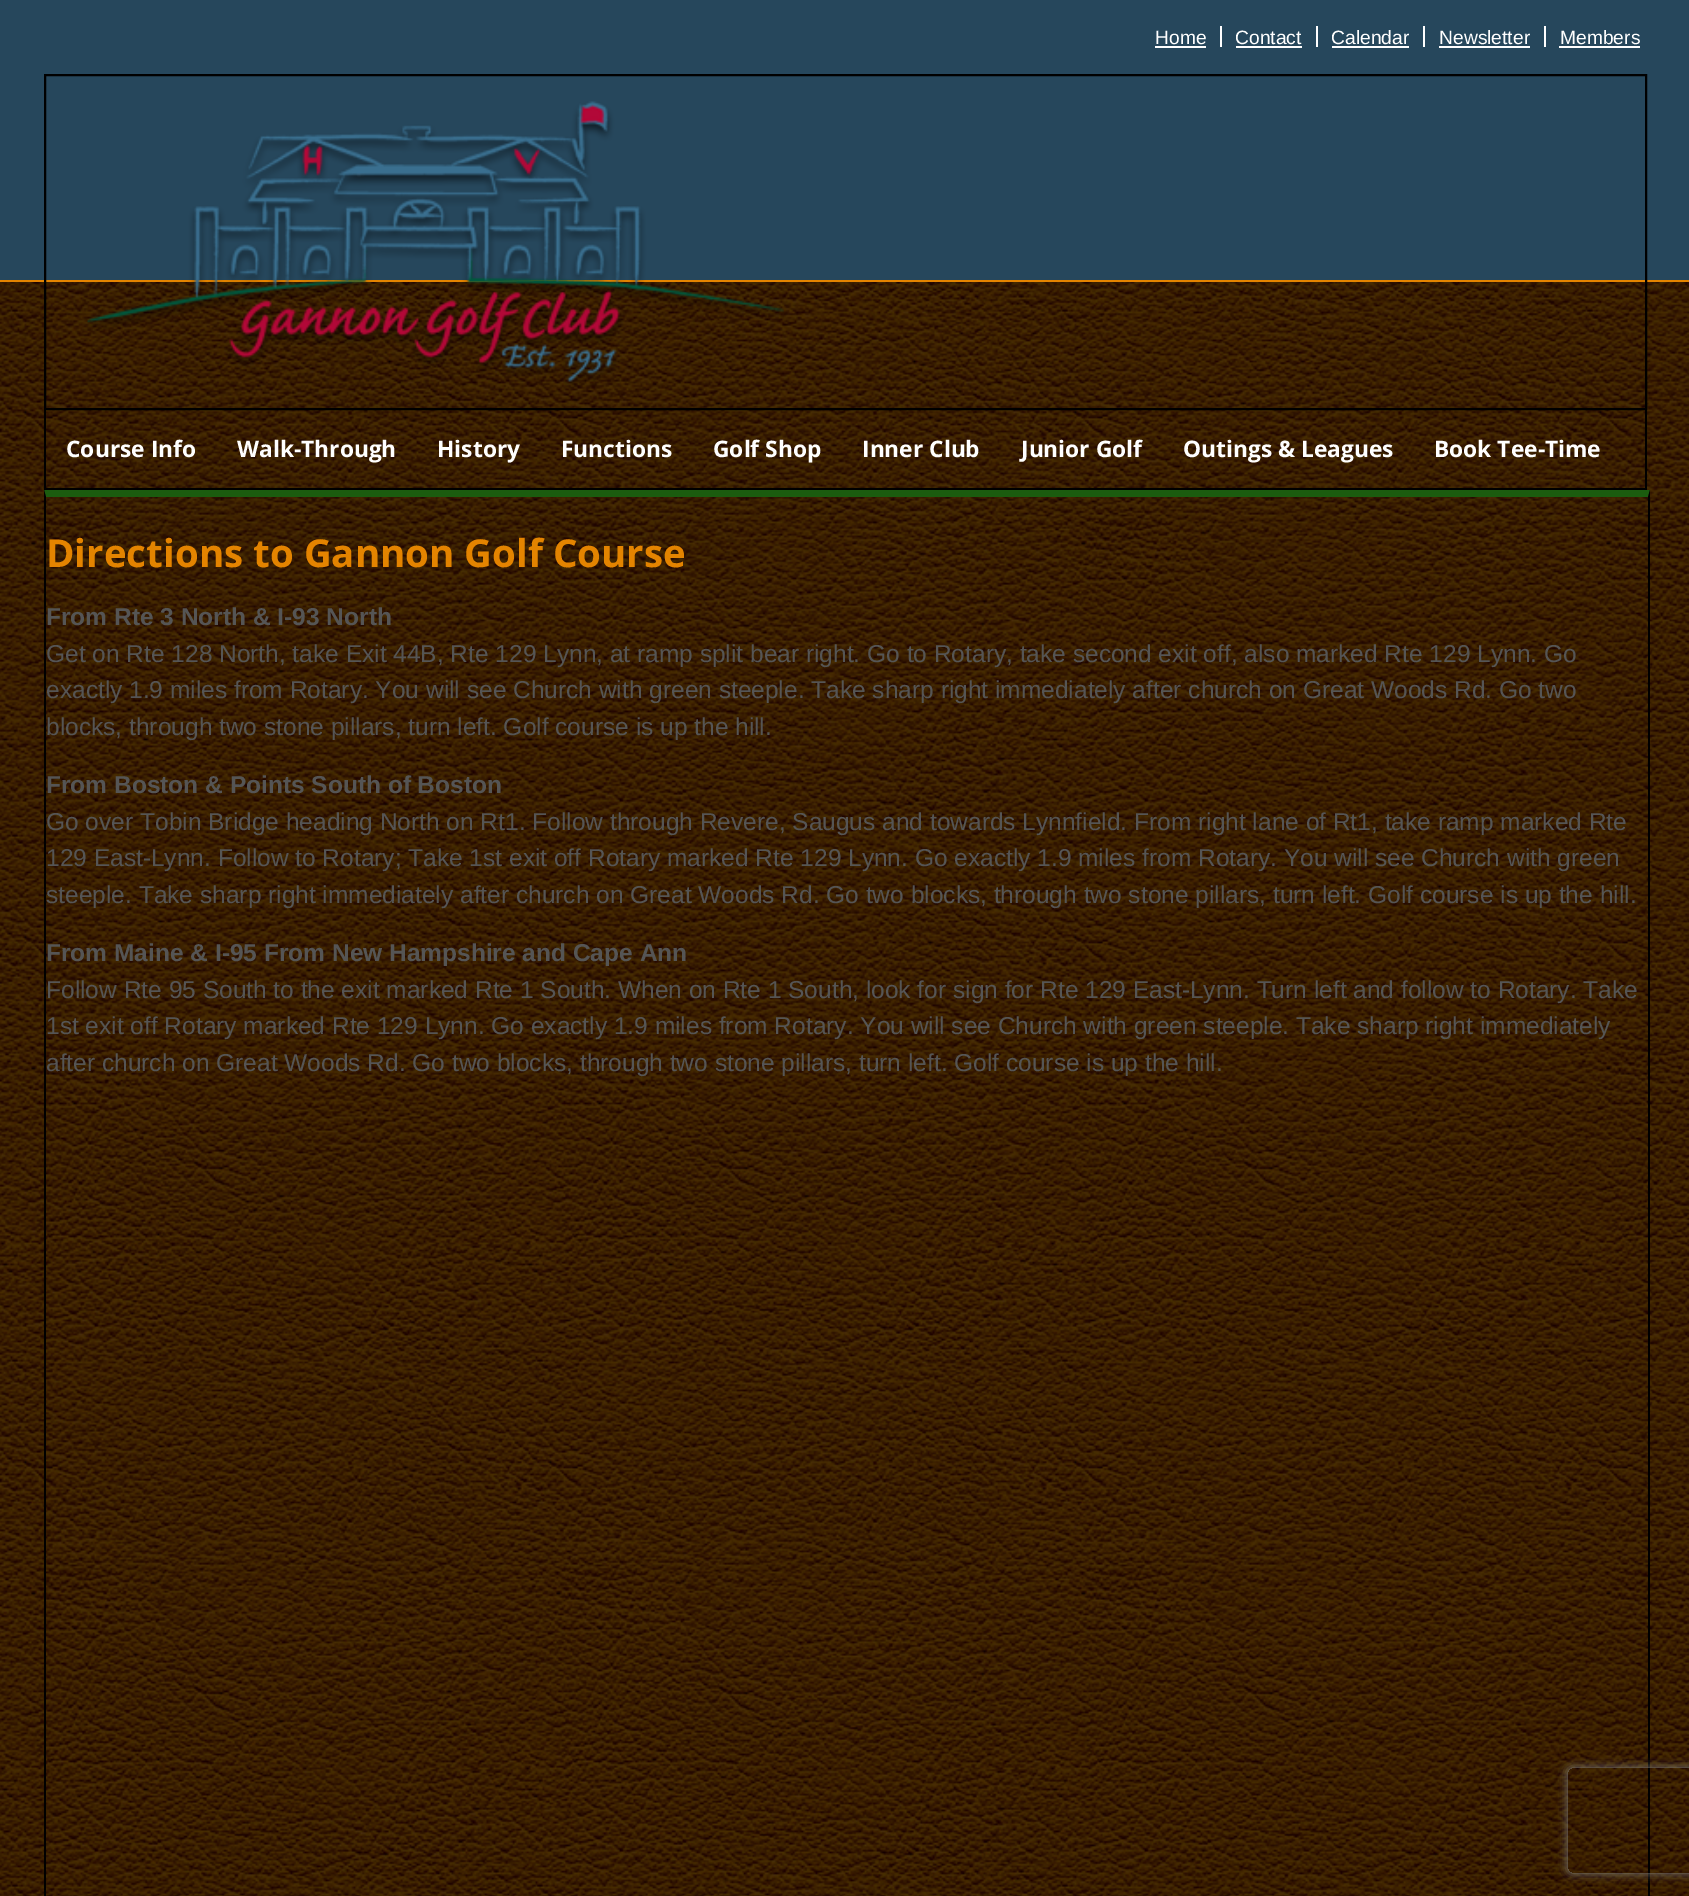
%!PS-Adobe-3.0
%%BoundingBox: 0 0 1689 1896
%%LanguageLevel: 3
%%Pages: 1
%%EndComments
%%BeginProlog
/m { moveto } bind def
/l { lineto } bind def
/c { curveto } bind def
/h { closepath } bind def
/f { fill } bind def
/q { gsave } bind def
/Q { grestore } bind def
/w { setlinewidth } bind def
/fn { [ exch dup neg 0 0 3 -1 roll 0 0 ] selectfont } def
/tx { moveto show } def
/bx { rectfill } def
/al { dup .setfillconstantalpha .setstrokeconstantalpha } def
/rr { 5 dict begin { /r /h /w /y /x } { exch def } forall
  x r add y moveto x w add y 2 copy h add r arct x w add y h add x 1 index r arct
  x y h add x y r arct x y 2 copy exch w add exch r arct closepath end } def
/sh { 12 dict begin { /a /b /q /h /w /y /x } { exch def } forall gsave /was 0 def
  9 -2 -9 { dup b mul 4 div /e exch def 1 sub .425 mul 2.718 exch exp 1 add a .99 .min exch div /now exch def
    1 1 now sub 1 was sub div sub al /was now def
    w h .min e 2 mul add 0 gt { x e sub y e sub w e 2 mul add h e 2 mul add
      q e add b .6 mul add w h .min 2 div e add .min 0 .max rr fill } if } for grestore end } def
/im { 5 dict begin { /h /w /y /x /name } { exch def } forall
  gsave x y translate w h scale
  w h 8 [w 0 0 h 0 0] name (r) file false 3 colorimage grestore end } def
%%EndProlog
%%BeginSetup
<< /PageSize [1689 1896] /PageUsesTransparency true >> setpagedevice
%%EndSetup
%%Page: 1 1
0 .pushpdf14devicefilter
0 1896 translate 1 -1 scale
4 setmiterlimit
1 setgray
0 0 1689 1896 bx
(image0.raw) 0 282 1689 1614 im
0.149 0.278 0.361 setrgbcolor
0 0 1689 280 bx
0.894 0.518 0 setrgbcolor
0 280 1689 2 bx
/LiberationSans-Regular 19.25 fn
1 setgray
(Home) 1155 44 tx
1155 46 51 2 bx
(Contact) 1235 44 tx
1220 26 2 21 bx
1236 46 66 2 bx
(Calendar) 1331 44 tx
1316 26 2 21 bx
1332 46 77 2 bx
(Newsletter) 1439 44 tx
1423 26 2 21 bx
1439 46 91 2 bx
(Members) 1560 44 tx
1544 26 2 21 bx
1559 46 81 2 bx
0 setgray
2 w
45 75 1601 334 rectstroke
(image1.raw) 87 101 697 287 im
1645 410 2 80 bx
44 488 1603 2 bx
44 410 2 80 bx
/OpenSans-Bold 22.75 fn
1 setgray
(Course Info) 66 457 tx
(Walk-Through) 237 457 tx
(History) 437 457 tx
(Functions) 561 457 tx
(Golf Shop) 713 457 tx
(Inner Club) 862 457 tx
(Junior Golf) 1021 457 tx
(Outings & Leagues) 1183 457 tx
(Book Tee-Time) 1434 457 tx
0.106 0.361 0.059 setrgbcolor
44 490 m 1650 490 l 1648 497 l 46 497 l h f
0 setgray
1650 490 m 1650 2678 l 1648 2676 l 1648 497 l h f
44 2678 m 44 490 l 46 497 l 46 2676 l h f
/OpenSans-Bold 38.5 fn
0.894 0.518 0 setrgbcolor
(Directions to Gannon Golf Course) 46 567 tx
/LiberationSans-Bold 24.5 fn
0.333 setgray
(From Rte 3 North & I-93 North) 46 625 tx
/LiberationSans-Regular 24.5 fn
(Get on Rte 128 North, take Exit 44B, Rte 129 Lynn, at ramp split bear right. Go to Rotary, take second exit off, also marked Rte 129 Lynn. Go) 46 662 tx
(exactly 1.9 miles from Rotary. You will see Church with green steeple. Take sharp right immediately after church on Great Woods Rd. Go two) 46 698 tx
(blocks, through two stone pillars, turn left. Golf course is up the hill.) 46 735 tx
/LiberationSans-Bold 24.5 fn
(From Boston & Points South of Boston) 46 793 tx
/LiberationSans-Regular 24.5 fn
(Go over Tobin Bridge heading North on Rt1. Follow through Revere, Saugus and towards Lynnfield. From right lane of Rt1, take ramp marked Rte) 46 830 tx
(129 East-Lynn. Follow to Rotary; Take 1st exit off Rotary marked Rte 129 Lynn. Go exactly 1.9 miles from Rotary. You will see Church with green) 46 866 tx
(steeple. Take sharp right immediately after church on Great Woods Rd. Go two blocks, through two stone pillars, turn left. Golf course is up the hill.) 46 903 tx
/LiberationSans-Bold 24.5 fn
(From Maine & I-95 From New Hampshire and Cape Ann) 46 961 tx
/LiberationSans-Regular 24.5 fn
(Follow Rte 95 South to the exit marked Rte 1 South. When on Rte 1 South, look for sign for Rte 129 East-Lynn. Turn left and follow to Rotary. Take) 46 998 tx
(1st exit off Rotary marked Rte 129 Lynn. Go exactly 1.9 miles from Rotary. You will see Church with green steeple. Take sharp right immediately) 46 1034 tx
(after church on Great Woods Rd. Go two blocks, through two stone pillars, turn left. Golf course is up the hill.) 46 1071 tx
q
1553 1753 m 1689 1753 l 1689 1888 l 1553 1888 l h 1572 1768 m 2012 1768 l 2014 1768 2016 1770 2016 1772 c 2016 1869 l 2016 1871 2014 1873 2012 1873 c 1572 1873 l 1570 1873 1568 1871 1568 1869 c 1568 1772 l 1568 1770 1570 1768 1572 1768 c h eoclip newpath
0.502 setgray
1568 1768 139 105 4 4.5 1 sh
Q
.poppdf14devicefilter showpage
%%EOF
